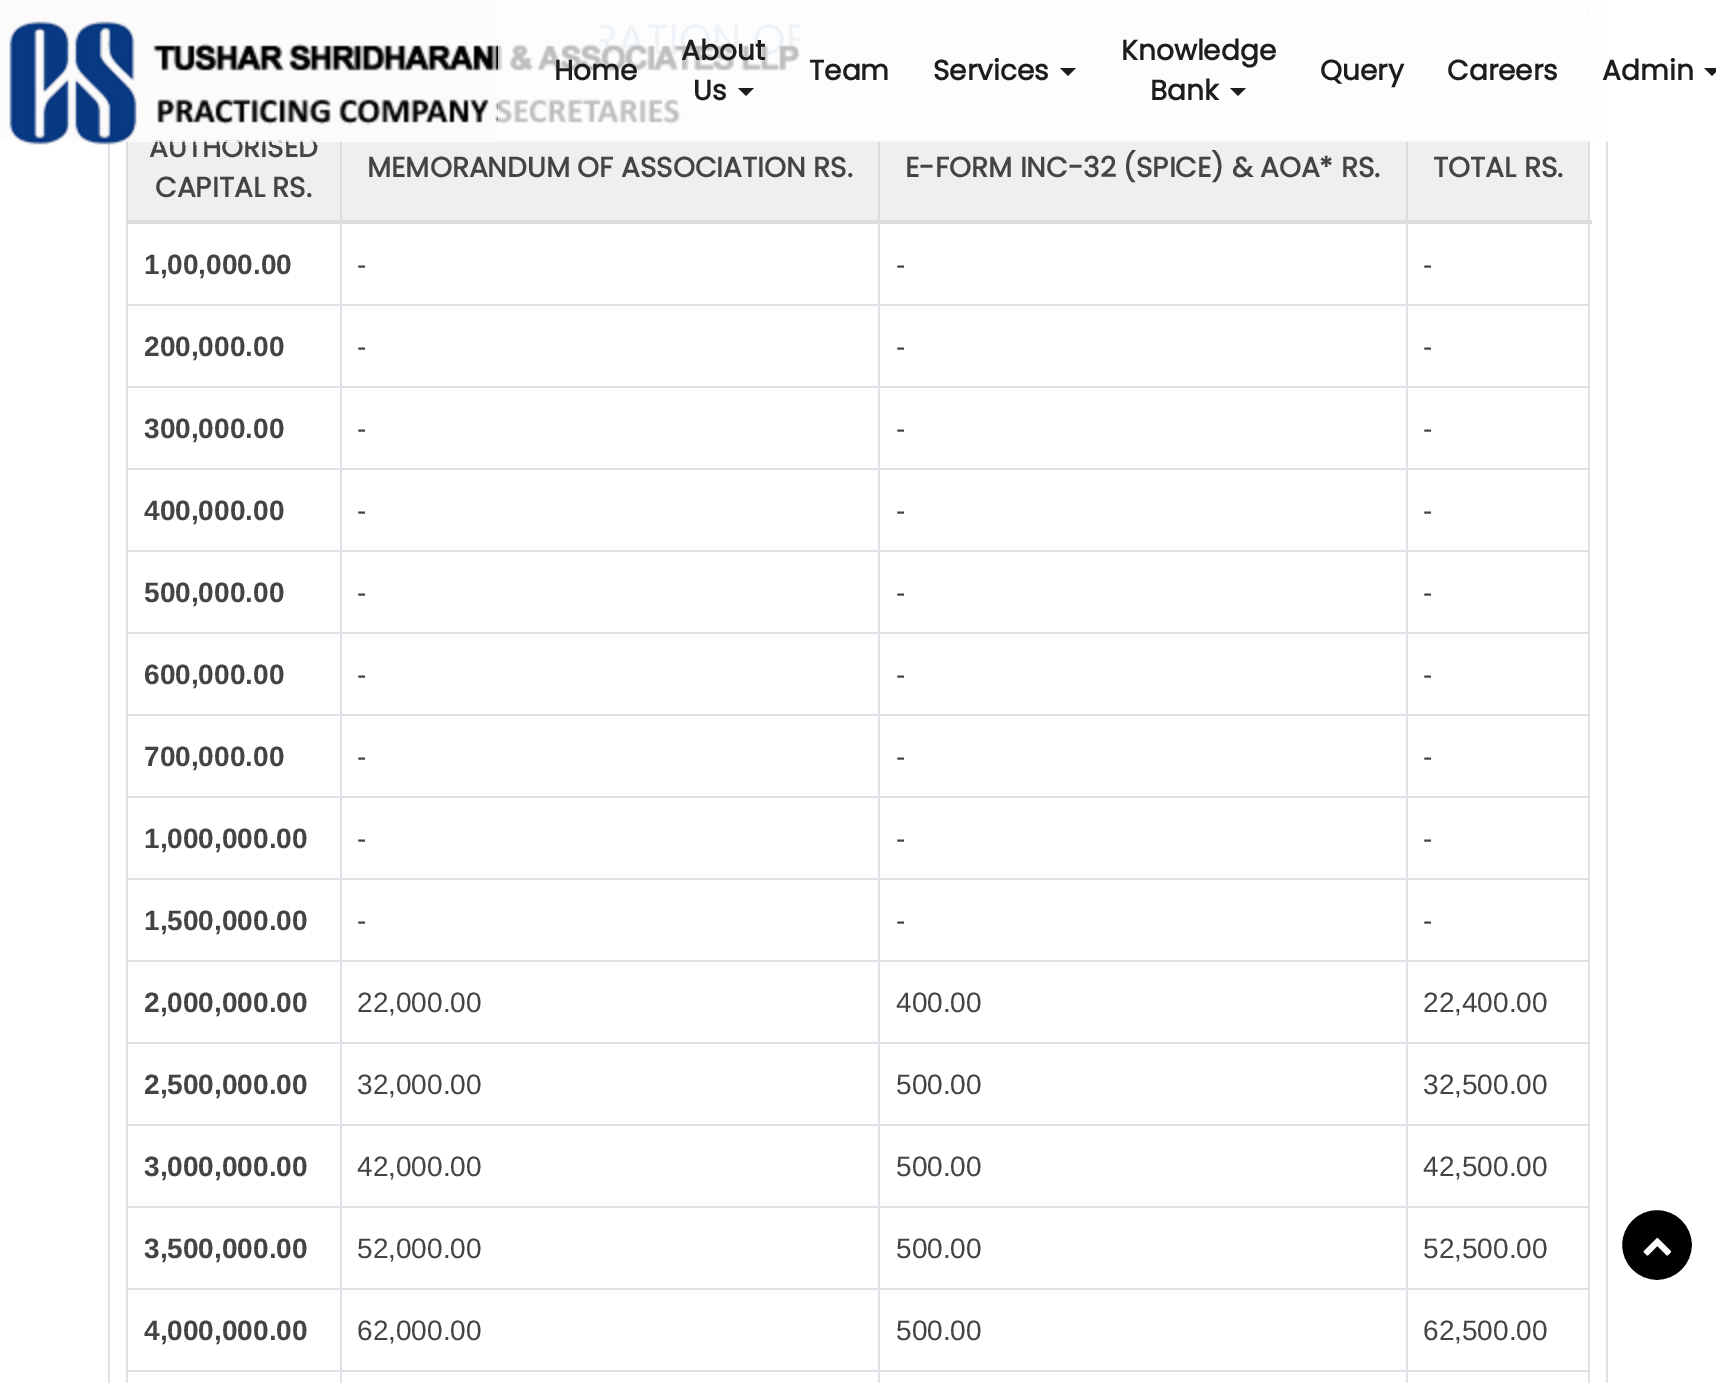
%!PS-Adobe-3.0
%%BoundingBox: 0 0 1716 1383
%%LanguageLevel: 3
%%Pages: 1
%%EndComments
%%BeginProlog
/m { moveto } bind def
/l { lineto } bind def
/c { curveto } bind def
/h { closepath } bind def
/f { fill } bind def
/S { stroke } bind def
/q { gsave } bind def
/Q { grestore } bind def
/w { setlinewidth } bind def
/fn { [ exch dup neg 0 0 3 -1 roll 0 0 ] selectfont } def
/tx { moveto show } def
/bx { rectfill } def
/al { dup .setfillconstantalpha .setstrokeconstantalpha } def
/ci { newpath 0 360 arc closepath } def
/im { 5 dict begin { /h /w /y /x /name } { exch def } forall
  gsave x y translate w h scale
  w h 8 [w 0 0 h 0 0] name (r) file false 3 colorimage grestore end } def
%%EndProlog
%%BeginSetup
<< /PageSize [1716 1383] /PageUsesTransparency true >> setpagedevice
%%EndSetup
%%Page: 1 1
0 .pushpdf14devicefilter
0 1383 translate 1 -1 scale
4 setmiterlimit
1 setgray
0 0 1716 1383 bx
0.937 setgray
158 -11 m 1558 -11 l 1575 -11 1589 3 1589 20 c 1589 91 l 127 91 l 127 20 l 127 3 141 -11 158 -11 c h q f Q
0.8 setgray
2 w
S
0.937 setgray
128 114 1460 106 bx
/Poppins-Bold 28 fn
0.267 setgray
(AUTHORISED) 149 157 tx
0.949 setgray
0 0 600 140 bx
0.871 0.886 0.902 setrgbcolor
1606 0 2 1383 bx
108 141 2 1242 bx
600 112 990 2 bx
0.867 setgray
126 140 2 84 bx
0.871 0.886 0.902 setrgbcolor
126 224 2 1159 bx
1588 224 2 1159 bx
1406 304 184 2 bx
1406 386 184 2 bx
1406 468 184 2 bx
1406 550 184 2 bx
1406 632 184 2 bx
1406 714 184 2 bx
1406 796 184 2 bx
1406 878 184 2 bx
1406 960 184 2 bx
1406 1042 184 2 bx
1406 1124 184 2 bx
1406 1206 184 2 bx
1406 1288 184 2 bx
1406 1370 184 2 bx
1406 1370 2 13 bx
878 1370 530 2 bx
1406 1288 2 84 bx
878 1288 530 2 bx
1406 1206 2 84 bx
878 1206 530 2 bx
1406 1124 2 84 bx
878 1124 530 2 bx
1406 1042 2 84 bx
878 1042 530 2 bx
1406 960 2 84 bx
878 960 530 2 bx
1406 878 2 84 bx
878 878 530 2 bx
1406 796 2 84 bx
878 796 530 2 bx
1406 714 2 84 bx
878 714 530 2 bx
1406 632 2 84 bx
878 632 530 2 bx
1406 550 2 84 bx
878 550 530 2 bx
1406 468 2 84 bx
878 468 530 2 bx
1406 386 2 84 bx
878 386 530 2 bx
1406 304 2 84 bx
878 304 530 2 bx
878 1370 2 13 bx
340 1370 540 2 bx
878 1288 2 84 bx
340 1288 540 2 bx
878 1206 2 84 bx
340 1206 540 2 bx
878 1124 2 84 bx
340 1124 540 2 bx
878 1042 2 84 bx
340 1042 540 2 bx
878 960 2 84 bx
340 960 540 2 bx
878 878 2 84 bx
340 878 540 2 bx
878 796 2 84 bx
340 796 540 2 bx
878 714 2 84 bx
340 714 540 2 bx
878 632 2 84 bx
340 632 540 2 bx
878 550 2 84 bx
340 550 540 2 bx
878 468 2 84 bx
340 468 540 2 bx
878 386 2 84 bx
340 386 540 2 bx
878 304 2 84 bx
340 304 540 2 bx
340 1370 2 13 bx
126 1370 216 2 bx
340 1288 2 84 bx
126 1288 216 2 bx
340 1206 2 84 bx
126 1206 216 2 bx
340 1124 2 84 bx
126 1124 216 2 bx
340 1042 2 84 bx
126 1042 216 2 bx
340 960 2 84 bx
126 960 216 2 bx
340 878 2 84 bx
126 878 216 2 bx
340 796 2 84 bx
126 796 216 2 bx
340 714 2 84 bx
126 714 216 2 bx
340 632 2 84 bx
126 632 216 2 bx
340 550 2 84 bx
126 550 216 2 bx
340 468 2 84 bx
126 468 216 2 bx
340 386 2 84 bx
126 386 216 2 bx
340 304 2 84 bx
126 304 216 2 bx
340 222 2 84 bx
0.867 setgray
340 140 2 84 bx
0.871 0.886 0.902 setrgbcolor
878 222 2 84 bx
0.867 setgray
878 112 2 112 bx
1588 112 2 112 bx
0.871 0.886 0.902 setrgbcolor
1406 222 2 84 bx
0.867 setgray
1406 112 2 112 bx
0.75 al
0.996 setgray
0 0 1608 142 bx
1 al
(image0.raw) 9 21 792 124 im
0.75 al
498 0 1110 140 bx
1 al
0.118 0.114 0.114 setrgbcolor
(Home) 554 80 tx
(About) 681 60 tx
(Us) 693 100 tx
738 88 m 754 88 l 746 96 l h f
(Team) 809 80 tx
(Services) 933 80 tx
1060 68 m 1076 68 l 1068 76 l h f
(Knowledge) 1121 60 tx
(Bank) 1150 100 tx
1230 88 m 1246 88 l 1238 96 l h f
(Query) 1320 80 tx
(Careers) 1447 80 tx
(Admin) 1602 80 tx
1704 68 m 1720 68 l 1712 76 l h f
0.267 setgray
(CAPITAL RS.) 155 197 tx
(MEMORANDUM OF ASSOCIATION RS.) 367 177 tx
(E-FORM INC-32 \(SPICE\) & AOA* RS.) 905 177 tx
0.867 setgray
126 220 1466 4 bx
0.267 setgray
(TOTAL RS.) 1433 177 tx
/LiberationSans-Bold 28 fn
(1,00,000.00) 144 274 tx
/LiberationSans-Regular 28 fn
(-) 357 274 tx
(-) 896 274 tx
(-) 1423 274 tx
/LiberationSans-Bold 28 fn
(200,000.00) 144 356 tx
/LiberationSans-Regular 28 fn
(-) 357 356 tx
(-) 896 356 tx
(-) 1423 356 tx
/LiberationSans-Bold 28 fn
(300,000.00) 144 438 tx
/LiberationSans-Regular 28 fn
(-) 357 438 tx
(-) 896 438 tx
(-) 1423 438 tx
/LiberationSans-Bold 28 fn
(400,000.00) 144 520 tx
/LiberationSans-Regular 28 fn
(-) 357 520 tx
(-) 896 520 tx
(-) 1423 520 tx
/LiberationSans-Bold 28 fn
(500,000.00) 144 602 tx
/LiberationSans-Regular 28 fn
(-) 357 602 tx
(-) 896 602 tx
(-) 1423 602 tx
/LiberationSans-Bold 28 fn
(600,000.00) 144 684 tx
/LiberationSans-Regular 28 fn
(-) 357 684 tx
(-) 896 684 tx
(-) 1423 684 tx
/LiberationSans-Bold 28 fn
(700,000.00) 144 766 tx
/LiberationSans-Regular 28 fn
(-) 357 766 tx
(-) 896 766 tx
(-) 1423 766 tx
/LiberationSans-Bold 28 fn
(1,000,000.00) 144 848 tx
/LiberationSans-Regular 28 fn
(-) 357 848 tx
(-) 896 848 tx
(-) 1423 848 tx
/LiberationSans-Bold 28 fn
(1,500,000.00) 144 930 tx
/LiberationSans-Regular 28 fn
(-) 357 930 tx
(-) 896 930 tx
(-) 1423 930 tx
/LiberationSans-Bold 28 fn
(2,000,000.00) 144 1012 tx
/LiberationSans-Regular 28 fn
(22,000.00) 357 1012 tx
(400.00) 896 1012 tx
(22,400.00) 1423 1012 tx
/LiberationSans-Bold 28 fn
(2,500,000.00) 144 1094 tx
/LiberationSans-Regular 28 fn
(32,000.00) 357 1094 tx
(500.00) 896 1094 tx
(32,500.00) 1423 1094 tx
/LiberationSans-Bold 28 fn
(3,000,000.00) 144 1176 tx
/LiberationSans-Regular 28 fn
(42,000.00) 357 1176 tx
(500.00) 896 1176 tx
(42,500.00) 1423 1176 tx
/LiberationSans-Bold 28 fn
(3,500,000.00) 144 1258 tx
/LiberationSans-Regular 28 fn
(52,000.00) 357 1258 tx
(500.00) 896 1258 tx
(52,500.00) 1423 1258 tx
/LiberationSans-Bold 28 fn
(4,000,000.00) 144 1340 tx
/LiberationSans-Regular 28 fn
(62,000.00) 357 1340 tx
(500.00) 896 1340 tx
(62,500.00) 1423 1340 tx
0 setgray
1657 1245 37 ci q f Q
1 setgray
4 w
S
(image1.raw) 1643 1237 29 19 im
.poppdf14devicefilter showpage
%%EOF
